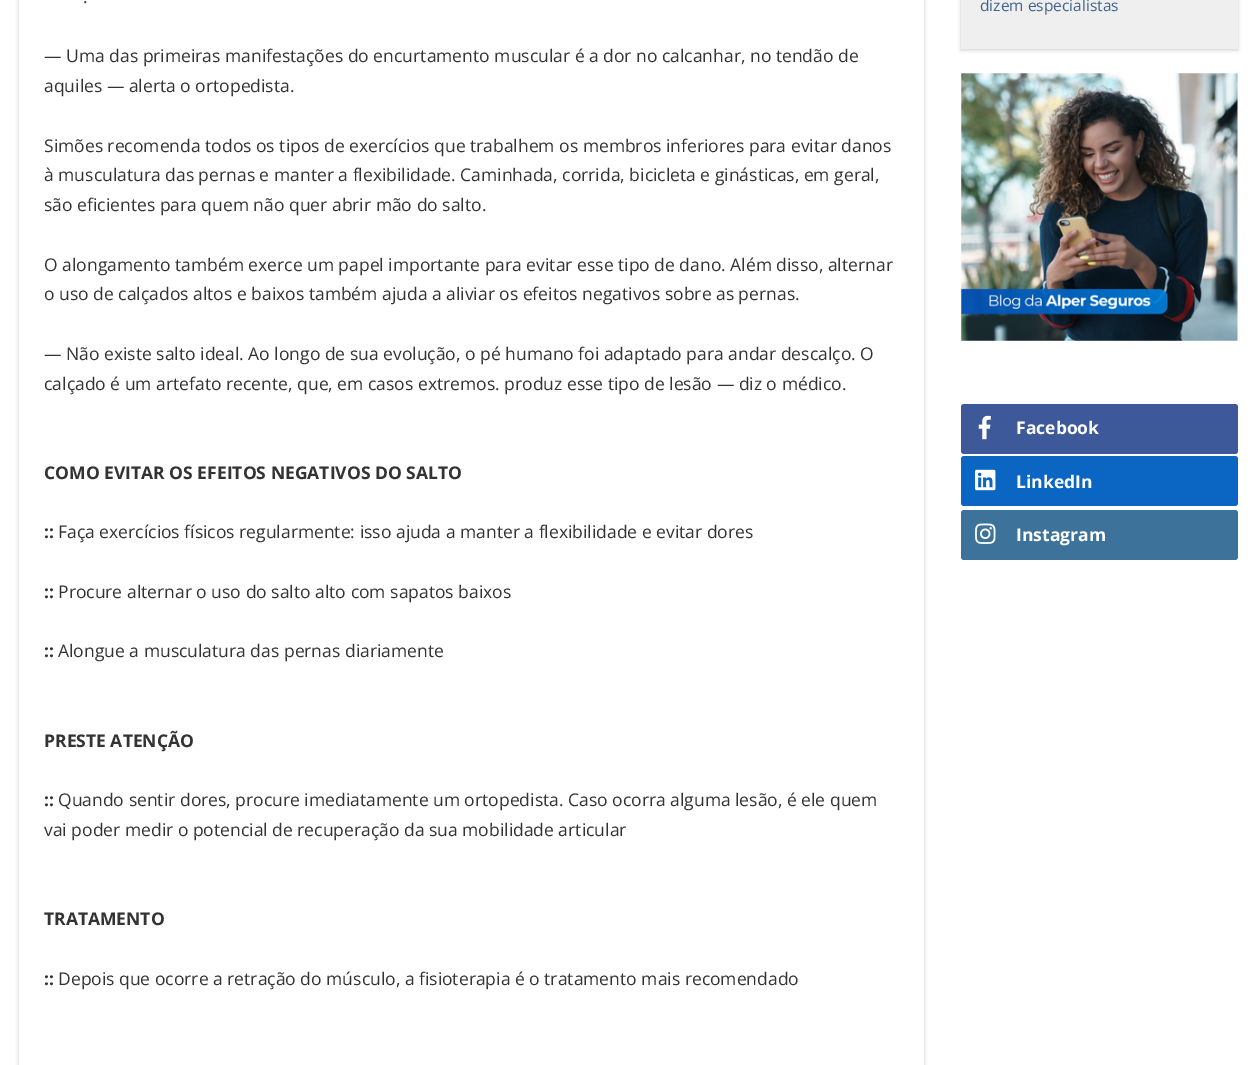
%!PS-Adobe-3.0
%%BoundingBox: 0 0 1256 1065
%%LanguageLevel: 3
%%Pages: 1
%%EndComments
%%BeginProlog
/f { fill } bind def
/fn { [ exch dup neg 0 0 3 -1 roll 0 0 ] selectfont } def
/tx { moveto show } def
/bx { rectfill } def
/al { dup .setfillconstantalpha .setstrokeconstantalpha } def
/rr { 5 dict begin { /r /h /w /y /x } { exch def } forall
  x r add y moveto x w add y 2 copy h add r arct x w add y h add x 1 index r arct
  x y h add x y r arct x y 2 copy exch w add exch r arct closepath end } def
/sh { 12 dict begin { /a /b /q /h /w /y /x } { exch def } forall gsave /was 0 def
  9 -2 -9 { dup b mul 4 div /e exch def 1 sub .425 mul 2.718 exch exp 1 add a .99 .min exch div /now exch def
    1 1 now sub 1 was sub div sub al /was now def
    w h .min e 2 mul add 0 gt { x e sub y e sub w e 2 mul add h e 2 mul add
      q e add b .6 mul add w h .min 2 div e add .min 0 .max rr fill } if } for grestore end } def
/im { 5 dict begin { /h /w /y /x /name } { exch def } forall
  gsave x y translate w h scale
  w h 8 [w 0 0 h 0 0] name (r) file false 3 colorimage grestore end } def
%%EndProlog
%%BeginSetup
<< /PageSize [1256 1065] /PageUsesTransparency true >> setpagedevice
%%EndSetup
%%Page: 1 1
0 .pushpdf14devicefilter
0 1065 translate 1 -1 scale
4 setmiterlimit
1 setgray
0 0 1256 1065 bx
0 setgray
19 -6 905 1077 0 2 0.2 sh
1 setgray
19 0 905 1065 bx
/OpenSans-Regular 17.5 fn
0.2 setgray
(.) 83 3 tx
(— Uma das primeiras manifestações do encurtamento muscular é a dor no calcanhar, no tendão de) 44 62 tx
(aquiles — alerta o ortopedista.) 44 92 tx
(Simões recomenda todos os tipos de exercícios que trabalhem os membros inferiores para evitar danos) 44 152 tx
(à musculatura das pernas e manter a flexibilidade. Caminhada, corrida, bicicleta e ginásticas, em geral,) 44 181 tx
(são eficientes para quem não quer abrir mão do salto.) 44 211 tx
(O alongamento também exerce um papel importante para evitar esse tipo de dano. Além disso, alternar) 44 271 tx
(o uso de calçados altos e baixos também ajuda a aliviar os efeitos negativos sobre as pernas.) 44 300 tx
(— Não existe salto ideal. Ao longo de sua evolução, o pé humano foi adaptado para andar descalço. O) 44 360 tx
(calçado é um artefato recente, que, em casos extremos. produz esse tipo de lesão — diz o médico.) 44 390 tx
/OpenSans-Bold 17.5 fn
(COMO EVITAR OS EFEITOS NEGATIVOS DO SALTO) 44 479 tx
(::) 44 538 tx
/OpenSans-Regular 17.5 fn
(Faça exercícios físicos regularmente: isso ajuda a manter a flexibilidade e evitar dores) 58 538 tx
/OpenSans-Bold 17.5 fn
(::) 44 598 tx
/OpenSans-Regular 17.5 fn
(Procure alternar o uso do salto alto com sapatos baixos) 58 598 tx
/OpenSans-Bold 17.5 fn
(::) 44 657 tx
/OpenSans-Regular 17.5 fn
(Alongue a musculatura das pernas diariamente) 58 657 tx
/OpenSans-Bold 17.5 fn
(PRESTE ATENÇÃO) 44 747 tx
(::) 44 806 tx
/OpenSans-Regular 17.5 fn
(Quando sentir dores, procure imediatamente um ortopedista. Caso ocorra alguma lesão, é ele quem) 58 806 tx
(vai poder medir o potencial de recuperação da sua mobilidade articular) 44 836 tx
/OpenSans-Bold 17.5 fn
(TRATAMENTO) 44 925 tx
(::) 44 985 tx
/OpenSans-Regular 17.5 fn
(Depois que ocorre a retração do músculo, a fisioterapia é o tratamento mais recomendado) 58 985 tx
0 setgray
961 -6 277 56 0 2 0.2 sh
0.937 setgray
961 0 277 49 bx
/OpenSans-Regular 15.5 fn
0.247 0.392 0.553 setrgbcolor
(dizem especialistas) 980 11 tx
(image0.raw) 961 73 277 268 im
0.239 0.349 0.604 setrgbcolor
961 404 277 50 3 rr f
(image1.raw) 978 415 13 25 im
/OpenSans-Bold 17.5 fn
1 setgray
(Facebook) 1016 434 tx
0.039 0.4 0.761 setrgbcolor
961 456 277 50 3 rr f
(image2.raw) 975 469 21 22 im
1 setgray
(LinkedIn) 1016 488 tx
0.239 0.447 0.604 setrgbcolor
961 510 277 50 3 rr f
(image3.raw) 975 523 21 21 im
1 setgray
(Instagram) 1016 541 tx
.poppdf14devicefilter showpage
%%EOF
